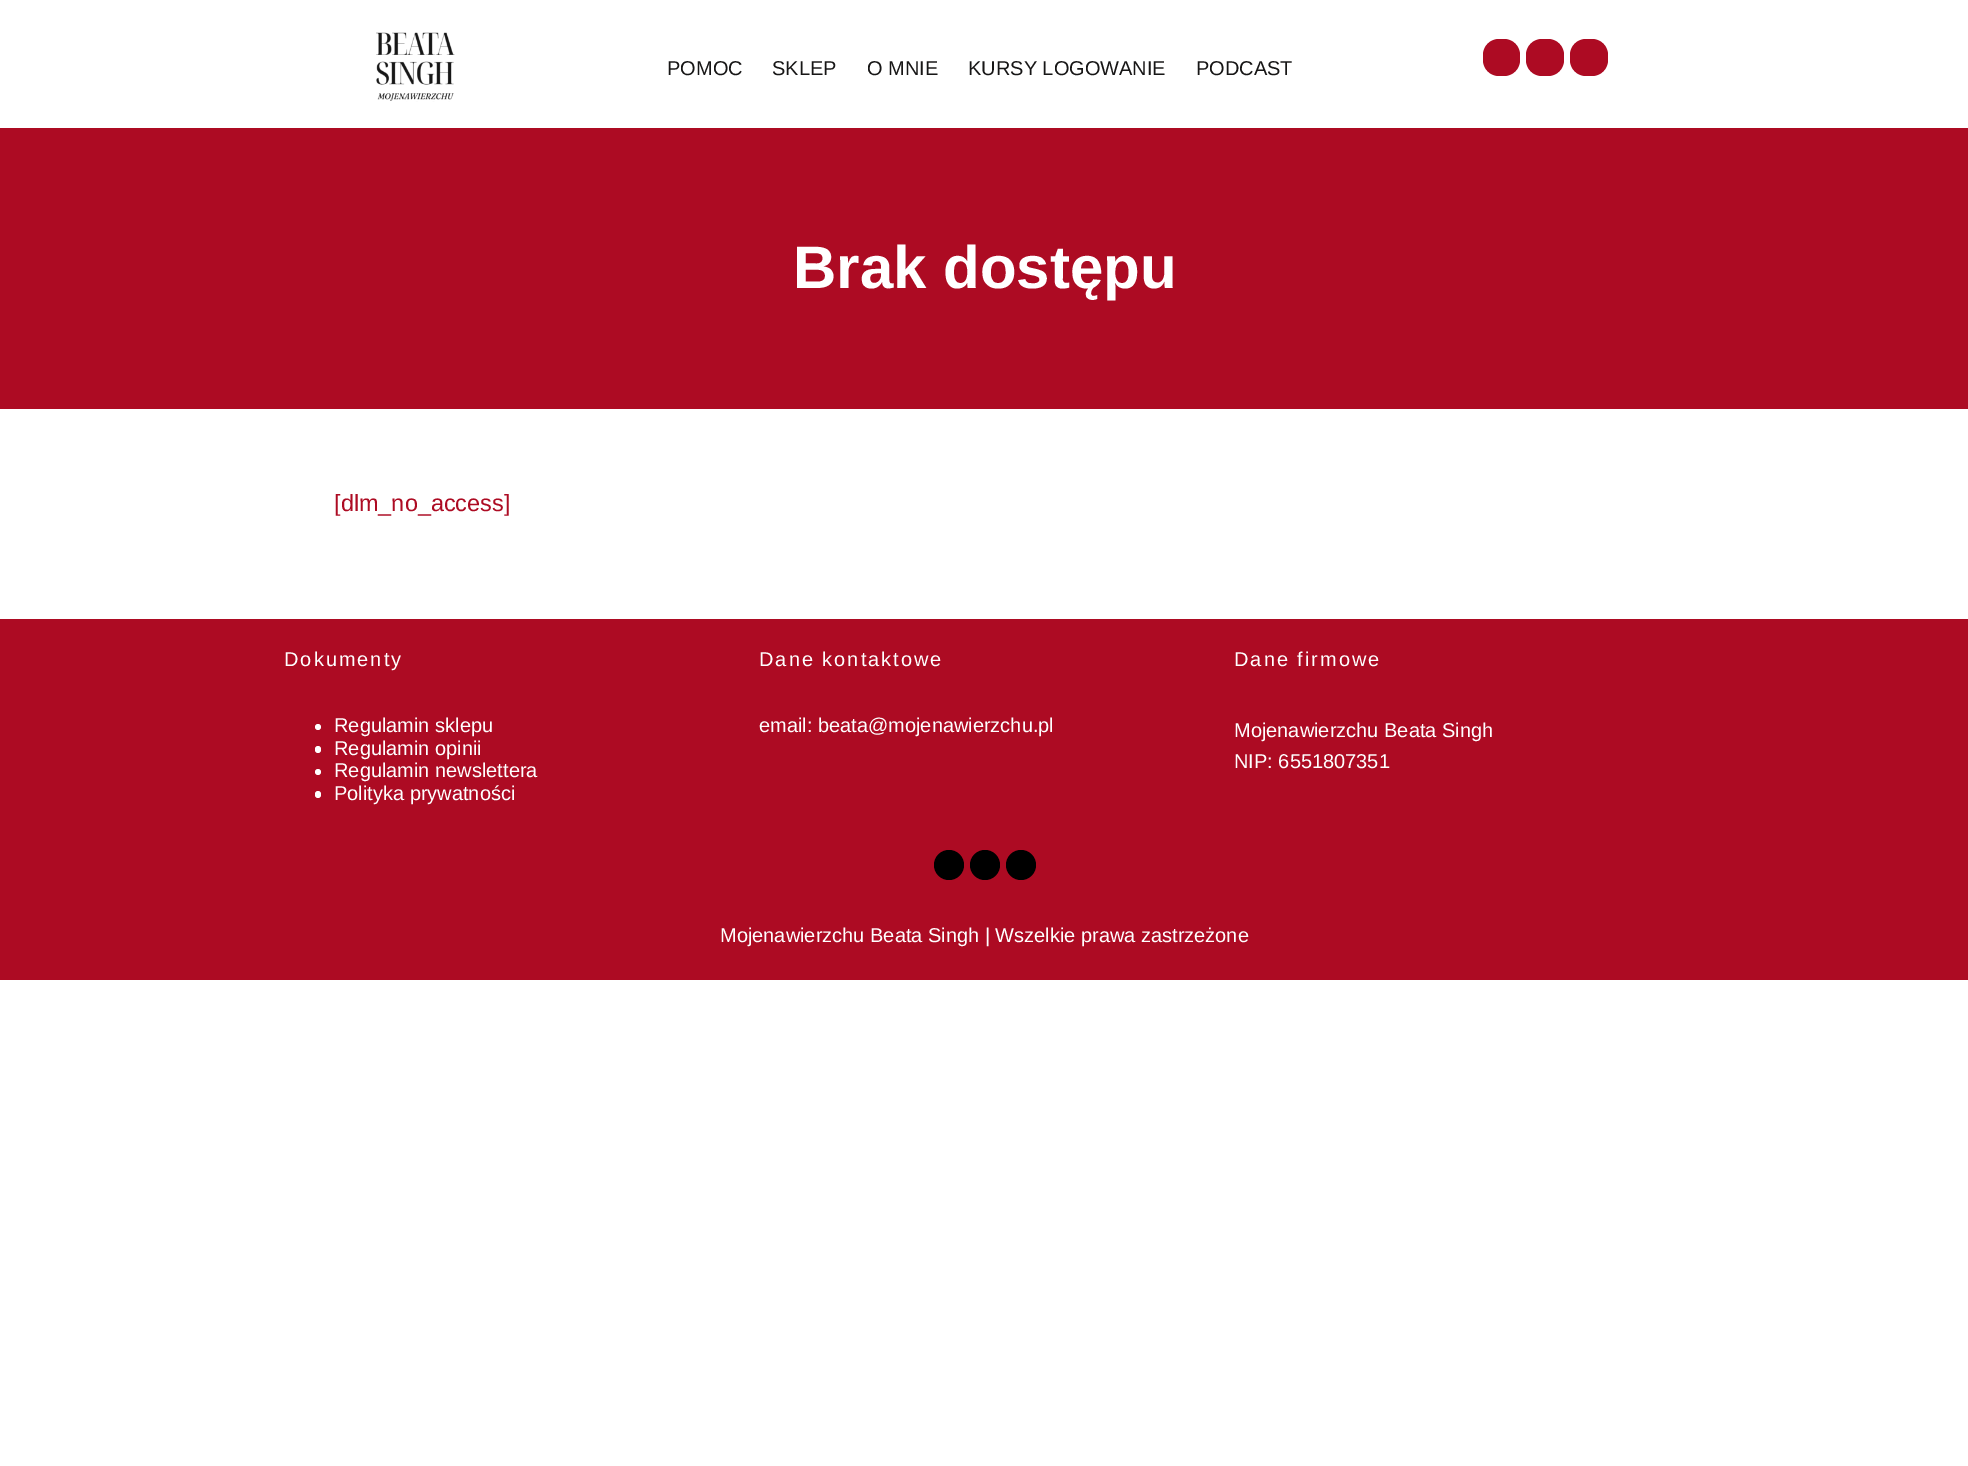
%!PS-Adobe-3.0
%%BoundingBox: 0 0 1968 1466
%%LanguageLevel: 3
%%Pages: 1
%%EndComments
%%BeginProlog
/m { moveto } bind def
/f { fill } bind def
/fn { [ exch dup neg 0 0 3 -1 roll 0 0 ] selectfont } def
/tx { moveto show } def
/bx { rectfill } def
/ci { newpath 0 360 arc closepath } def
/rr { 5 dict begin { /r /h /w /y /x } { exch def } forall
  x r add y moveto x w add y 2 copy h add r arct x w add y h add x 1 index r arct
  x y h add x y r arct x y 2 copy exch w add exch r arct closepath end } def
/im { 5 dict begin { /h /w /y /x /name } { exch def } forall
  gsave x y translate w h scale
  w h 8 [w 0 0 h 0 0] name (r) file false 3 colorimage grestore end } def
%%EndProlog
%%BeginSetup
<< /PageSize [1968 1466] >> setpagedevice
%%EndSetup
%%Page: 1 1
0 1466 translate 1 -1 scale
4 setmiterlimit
1 setgray
0 0 1968 1466 bx
(image0.raw) 376 32 79 70 im
/LiberationSans-Regular 20 fn
0.09 0.086 0.086 setrgbcolor
(POMOC) 667 75 tx
(SKLEP) 772 75 tx
(O MNIE) 867 75 tx
(KURSY LOGOWANIE) 968 75 tx
(PODCAST) 1196 75 tx
0.678 0.043 0.137 setrgbcolor
1483 39 37 37 16 rr f
1526 39 38 37 16 rr f
1570 39 38 37 16 rr f
0 128 1968 281 bx
/LiberationSans-Bold 60 fn
1 setgray
(Brak dostępu) 793 288 tx
/LiberationSans-Regular 23.5 fn
0.678 0.043 0.137 setrgbcolor
([dlm_no_access]) 334 511 tx
0 619 1968 361 bx
/LiberationSans-Regular 20 fn
1 setgray
284 666 m 2 0 (Dokumenty) ashow
318 727 3 ci f
(Regulamin sklepu) 334 732 tx
315 746 6 7 3 rr f
(Regulamin opinii) 334 755 tx
318 772 3 ci f
(Regulamin newslettera) 334 777 tx
315 791 6 7 3 rr f
(Polityka prywatności) 334 800 tx
759 666 m 2 0 (Dane kontaktowe) ashow
(email: beata@mojenawierzchu.pl) 759 732 tx
1234 666 m 2 0 (Dane firmowe) ashow
(Mojenawierzchu Beata Singh) 1234 737 tx
(NIP: 6551807351) 1234 768 tx
0 setgray
949 865 15 ci f
985 865 15 ci f
1021 865 15 ci f
1 setgray
(Mojenawierzchu Beata Singh | Wszelkie prawa zastrzeżone) 720 942 tx
showpage
%%EOF
